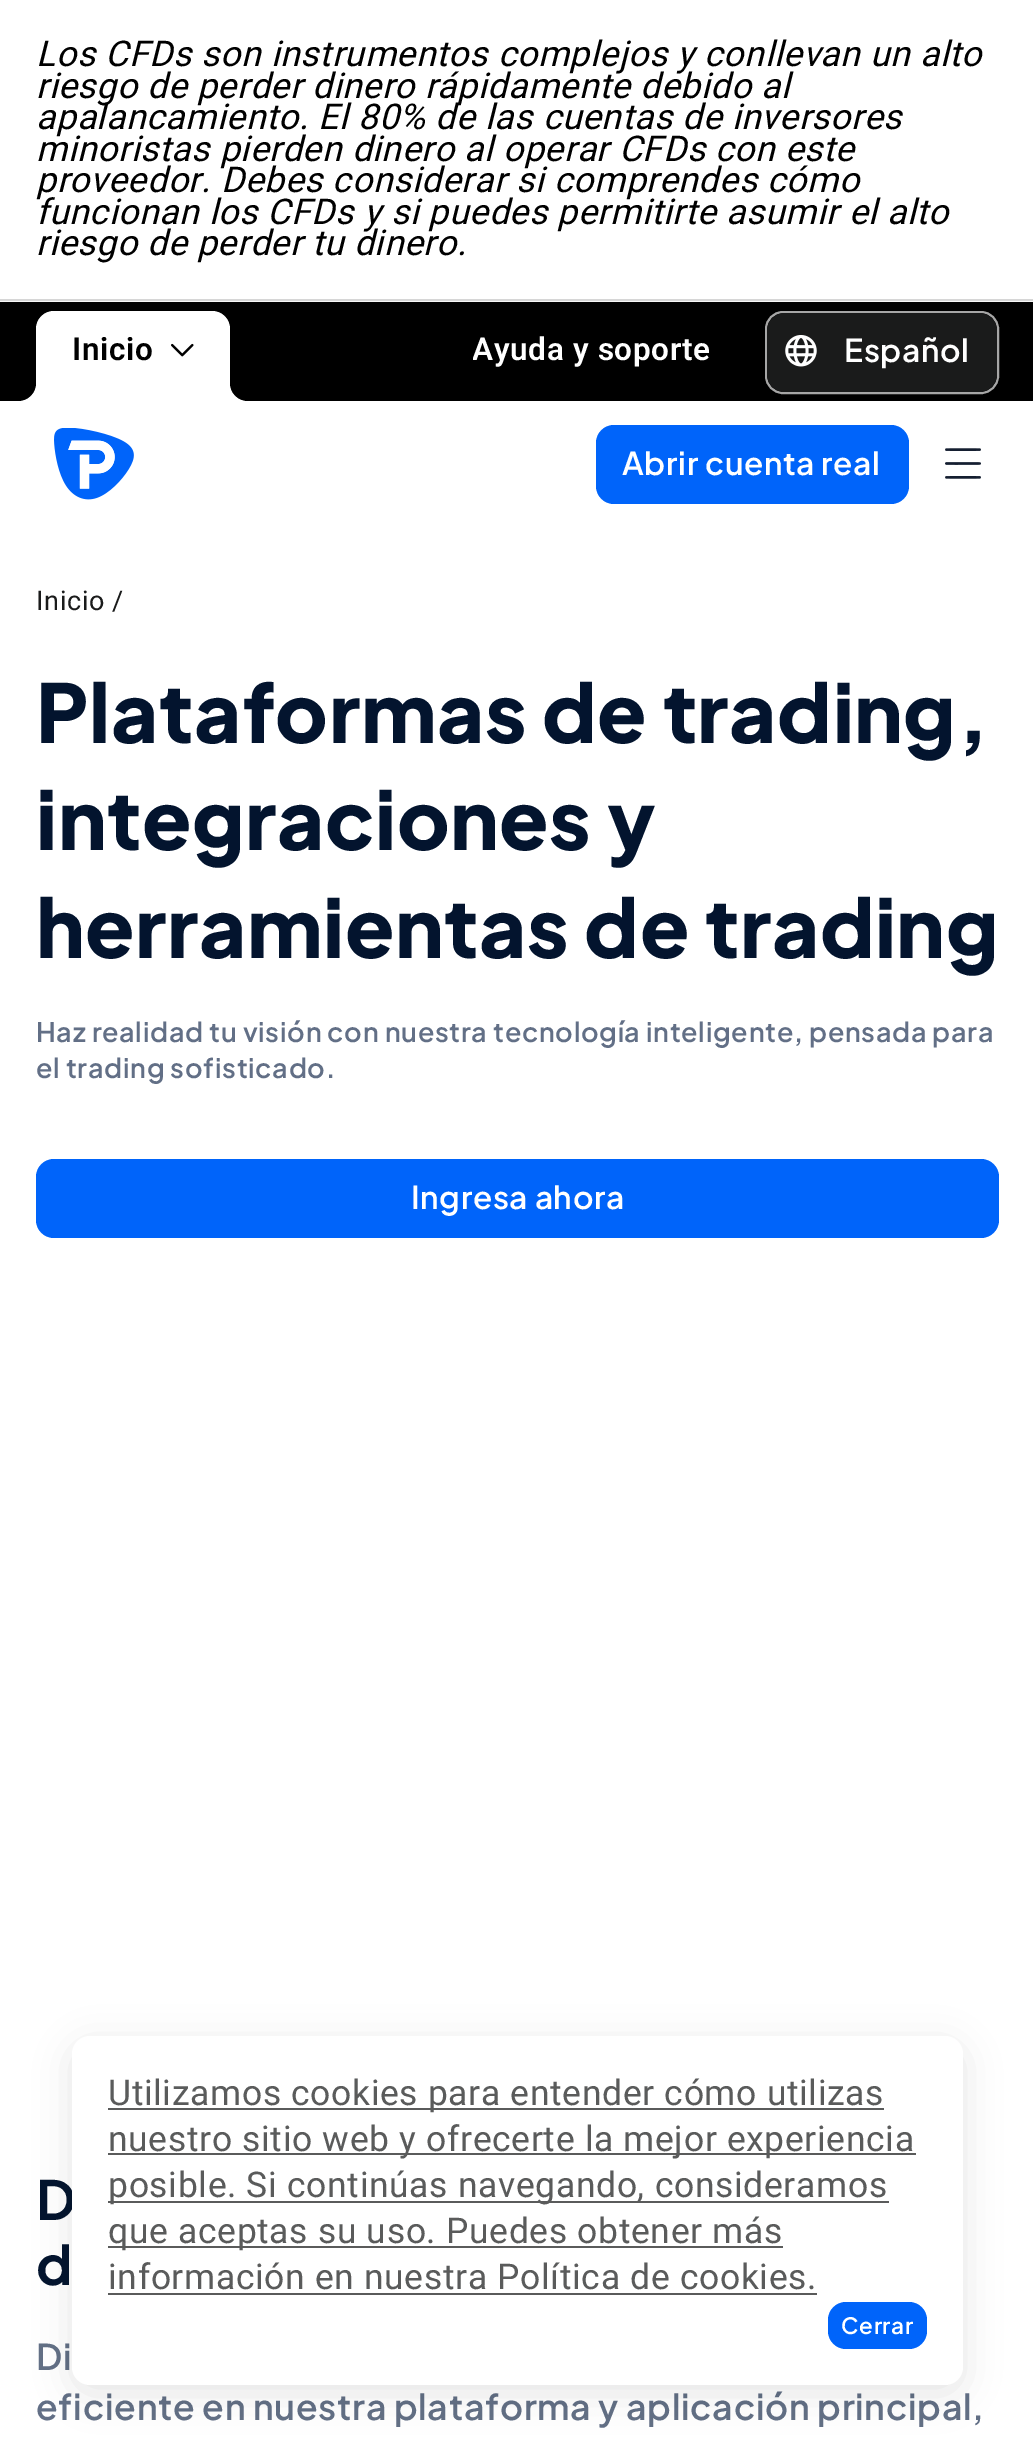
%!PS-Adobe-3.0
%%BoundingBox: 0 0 1033 2455
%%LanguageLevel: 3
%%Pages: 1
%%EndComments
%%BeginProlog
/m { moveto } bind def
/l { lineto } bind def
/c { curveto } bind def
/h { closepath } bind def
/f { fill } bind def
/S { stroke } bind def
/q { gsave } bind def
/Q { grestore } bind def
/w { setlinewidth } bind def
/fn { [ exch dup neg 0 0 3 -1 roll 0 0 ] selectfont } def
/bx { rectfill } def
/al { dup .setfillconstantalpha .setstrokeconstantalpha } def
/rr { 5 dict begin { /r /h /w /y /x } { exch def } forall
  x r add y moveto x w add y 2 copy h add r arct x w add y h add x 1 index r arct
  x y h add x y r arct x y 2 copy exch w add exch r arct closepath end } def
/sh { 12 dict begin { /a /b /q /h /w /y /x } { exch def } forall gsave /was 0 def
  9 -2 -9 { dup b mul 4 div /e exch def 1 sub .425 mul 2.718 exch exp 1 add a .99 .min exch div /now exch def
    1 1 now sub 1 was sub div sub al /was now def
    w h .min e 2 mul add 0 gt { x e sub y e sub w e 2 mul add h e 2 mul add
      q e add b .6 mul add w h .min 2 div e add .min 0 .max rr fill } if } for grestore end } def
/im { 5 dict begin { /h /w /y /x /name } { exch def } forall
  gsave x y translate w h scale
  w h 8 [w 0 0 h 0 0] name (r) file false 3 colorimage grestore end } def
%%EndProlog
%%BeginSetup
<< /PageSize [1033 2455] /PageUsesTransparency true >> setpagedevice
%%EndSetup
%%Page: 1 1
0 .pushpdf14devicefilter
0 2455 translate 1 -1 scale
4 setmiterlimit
0.969 setgray
0 0 1033 2455 bx
1 setgray
0 0 1033 299 bx
0.839 setgray
0 299 1033 2 bx
/Roboto-Italic 35.45 fn
0 setgray
36 66 m 0.67 0 (Los CFDs son instrumentos complejos y conllevan un alto) ashow
36 98 m 0.67 0 (riesgo de perder dinero rápidamente debido al) ashow
36 129 m 0.67 0 (apalancamiento. El 80% de las cuentas de inversores) ashow
36 161 m 0.67 0 (minoristas pierden dinero al operar CFDs con este) ashow
36 192 m 0.67 0 (proveedor. Debes considerar si comprendes cómo) ashow
36 224 m 0.67 0 (funcionan los CFDs y si puedes permitirte asumir el alto) ashow
36 255 m 0.67 0 (riesgo de perder tu dinero.) ashow
0 302 1033 99 bx
1 setgray
54 311 m 212 311 l 222 311 230 319 230 329 c 230 401 l 36 401 l 36 329 l 36 319 44 311 54 311 c h f
/Roboto-SemiBold 31.5 fn
0 setgray
72 360 m 0.67 0 (Inicio) ashow
(image0.raw) 171 343 23 14 im
1 setgray
18 383 18 18 bx
0 setgray
18 365 m 28 365 36 373 36 383 c 36 393 28 401 18 401 c h f
1 setgray
230 383 18 18 bx
0 setgray
248 365 m 248 401 l 238 401 230 393 230 383 c 230 373 238 365 248 365 c h f
q
473 329 238 45 rectclip
1 setgray
472 360 m 0.67 0 (Ayuda y soporte) ashow
Q
0.651 setgray
2 w
766 312 232 81 17 rr S
0.102 0.106 0.106 setrgbcolor
767 313 230 79 18 rr f
(image1.raw) 785 335 32 32 im
/PlusJakartaSans-SemiBold 31.5 fn
1 setgray
844 362 m 0.67 0 (Español) ashow
0 401 1033 2054 bx
(image2.raw) 54 428 80 72 im
0 0.392 0.98 setrgbcolor
596 425 313 79 18 rr f
1 setgray
622 475 m 0.67 0 (Abrir cuenta real) ashow
(image3.raw) 945 448 36 31 im
/Roboto-Regular 27 fn
0.102 0.106 0.106 setrgbcolor
36 610 m 0.67 0 (Inicio /) ashow
/PlusJakartaSans-ExtraBold 81 fn
0.012 0.078 0.18 setrgbcolor
36 743 m 0.67 0 (Plataformas de trading,) ashow
36 850 m 0.67 0 (integraciones y) ashow
36 958 m 0.67 0 (herramientas de trading) ashow
/PlusJakartaSans-SemiBold 27 fn
0.384 0.435 0.525 setrgbcolor
36 1042 m 0.67 0 (Haz realidad tu visión con nuestra tecnología inteligente, pensada para) ashow
36 1078 m 0.67 0 (el trading sofisticado.) ashow
0 0.392 0.98 setrgbcolor
36 1159 963 79 18 rr f
/PlusJakartaSans-SemiBold 31.5 fn
1 setgray
411 1209 m 0.67 0 (Ingresa ahora) ashow
/PlusJakartaSans-Bold 54 fn
0.012 0.078 0.18 setrgbcolor
36 2220 m 0.67 0 (D) ashow
36 2285 m 0.67 0 (d) ashow
/PlusJakartaSans-SemiBold 35.45 fn
0.384 0.435 0.525 setrgbcolor
36 2370 m 0.67 0 (Di) ashow
36 2420 m 0.67 0 (eficiente en nuestra plataforma y aplicación principal,) ashow
0 setgray
72 2045 891 349 18 18 0.1 sh
1 setgray
72 2036 891 349 18 rr f
0.353 0.357 0.357 setrgbcolor
108 2108 776 2 bx
/Roboto-Regular 35.45 fn
108 2105 m 0.67 0 (Utilizamos cookies para entender cómo utilizas) ashow
108 2153 808 2 bx
108 2151 m 0.67 0 (nuestro sitio web y ofrecerte la mejor experiencia) ashow
108 2201 781 2 bx
108 2197 m 0.67 0 (posible. Si continúas navegando, consideramos) ashow
108 2246 675 2 bx
108 2243 m 0.67 0 (que aceptas su uso. Puedes obtener más) ashow
108 2289 m 0.67 0 (información en nuestra Política de cookies.) ashow
108 2293 709 2 bx
0 0.392 0.98 setrgbcolor
828 2302 99 47 18 rr f
/PlusJakartaSans-SemiBold 22.5 fn
1 setgray
841 2334 m 0.67 0 (Cerrar) ashow
.poppdf14devicefilter showpage
%%EOF
